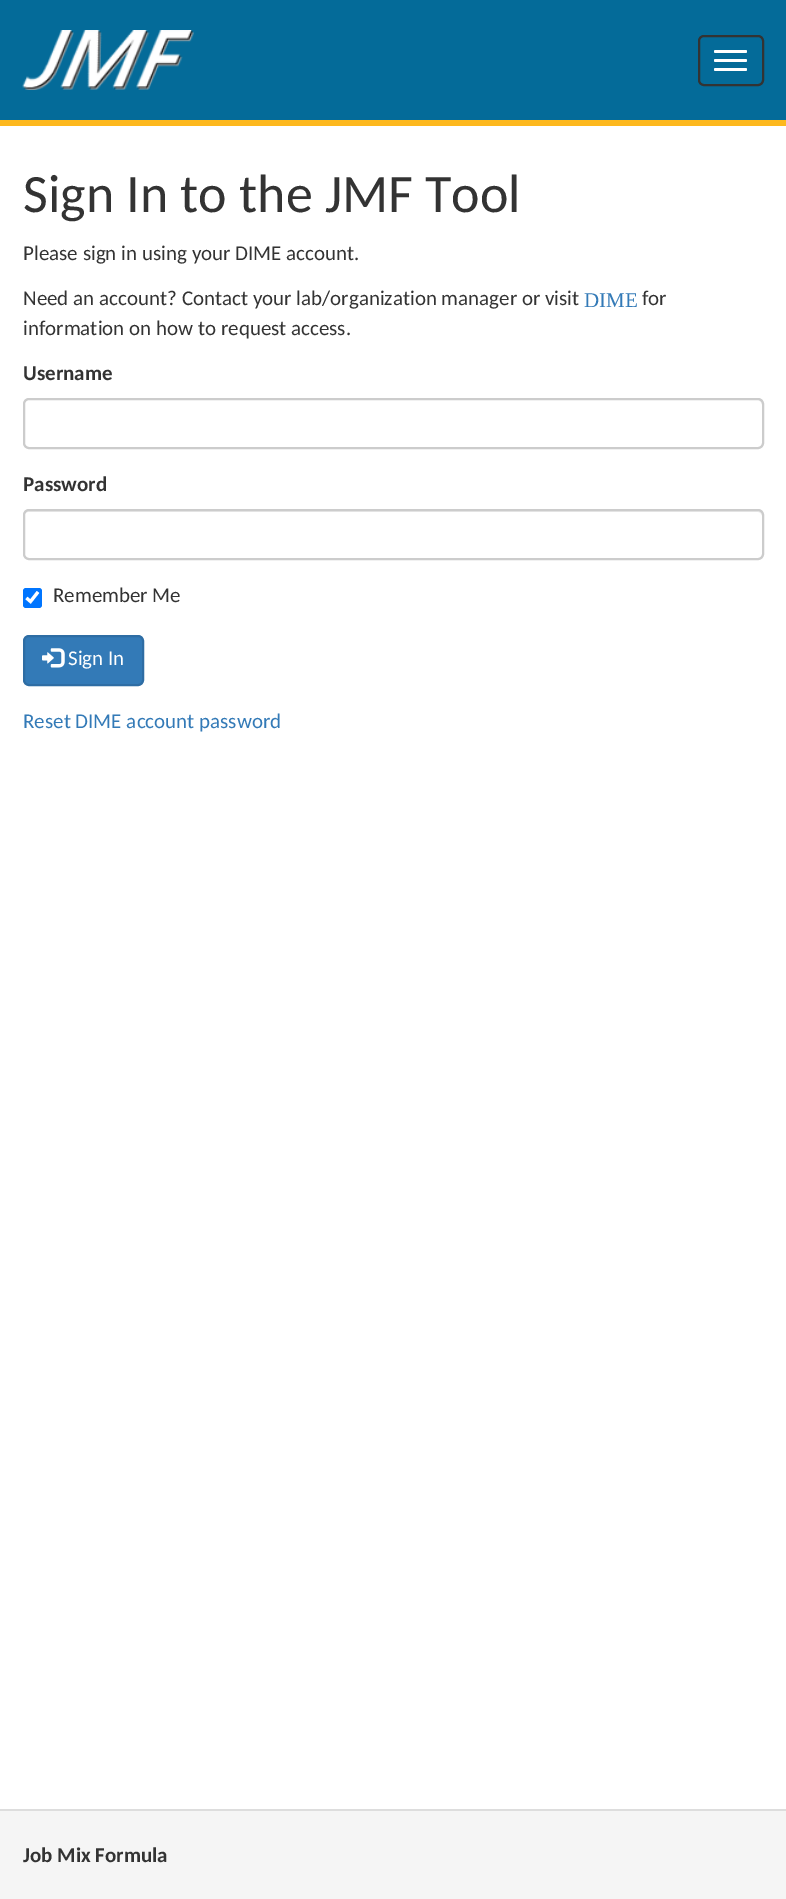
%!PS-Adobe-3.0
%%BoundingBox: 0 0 786 1899
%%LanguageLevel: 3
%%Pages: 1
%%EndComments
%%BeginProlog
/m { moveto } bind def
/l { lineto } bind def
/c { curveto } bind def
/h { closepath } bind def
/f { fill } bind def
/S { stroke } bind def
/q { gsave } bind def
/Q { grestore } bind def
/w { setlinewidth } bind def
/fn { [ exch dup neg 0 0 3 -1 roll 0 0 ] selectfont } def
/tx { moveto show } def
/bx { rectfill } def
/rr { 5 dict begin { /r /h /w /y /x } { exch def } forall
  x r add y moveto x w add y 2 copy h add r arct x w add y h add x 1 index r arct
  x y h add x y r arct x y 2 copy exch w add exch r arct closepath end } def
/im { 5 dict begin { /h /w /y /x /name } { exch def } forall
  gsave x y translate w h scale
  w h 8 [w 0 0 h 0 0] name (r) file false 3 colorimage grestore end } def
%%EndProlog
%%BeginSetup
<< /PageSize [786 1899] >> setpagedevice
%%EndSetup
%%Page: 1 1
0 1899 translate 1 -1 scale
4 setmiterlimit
1 setgray
0 0 786 1899 bx
0.016 0.42 0.6 setrgbcolor
0 0 786 120 bx
0.992 0.722 0.118 setrgbcolor
0 120 786 6 bx
(image0.raw) 22 30 172 60 im
0.2 setgray
2 w
699 36 64 49 5 rr S
1 setgray
714 50 33 3 1.5 rr f
714 59 33 3 1.5 rr f
714 68 33 3 1.5 rr f
/Carlito-Regular 54 fn
0.2 setgray
(Sign In to the JMF Tool) 23 212 tx
/Carlito-Regular 21 fn
(Please sign in using your DIME account.) 23 260 tx
(Need an account? Contact your lab/organization manager or visit) 23 305 tx
/LiberationSerif-Regular 21 fn
0.2 0.478 0.718 setrgbcolor
(DIME) 584 307 tx
/Carlito-Regular 21 fn
0.2 setgray
(for) 642 305 tx
(information on how to request access.) 23 335 tx
/Carlito-Bold 21 fn
(Username) 23 380 tx
0.925 setgray
28 400 m 758 400 l 760 400 762 403 762 405 c 762 402 760 399 757 399 c 29 399 l 26 399 24 402 24 405 c 24 403 26 400 28 400 c h f
0.8 setgray
24 399 739 49 5 rr S
0.2 setgray
(Password) 23 491 tx
0.925 setgray
28 512 m 758 512 l 760 512 762 514 762 516 c 762 513 760 510 757 510 c 29 510 l 26 510 24 513 24 516 c 24 514 26 512 28 512 c h f
0.8 setgray
24 510 739 49 5 rr S
0 0.459 1 setrgbcolor
23 588 19 20 3 rr f
1 setgray
3.1 w
26.5 598 m 30.5 601.5 l 38 592 l S
/Carlito-Regular 21 fn
0.2 setgray
(Remember Me) 53 602 tx
0.2 0.478 0.718 setrgbcolor
24 636 119 49 5 rr q f Q
0.18 0.427 0.643 setrgbcolor
2 w
S
(image1.raw) 42 648 23 20 im
1 setgray
(Sign In) 68 665 tx
0.2 0.478 0.718 setrgbcolor
(Reset DIME account password) 23 728 tx
0.961 setgray
0 1811 786 88 bx
0.867 setgray
0 1809 786 2 bx
/Carlito-Bold 21 fn
0.2 setgray
(Job Mix Formula) 23 1862 tx
showpage
%%EOF
